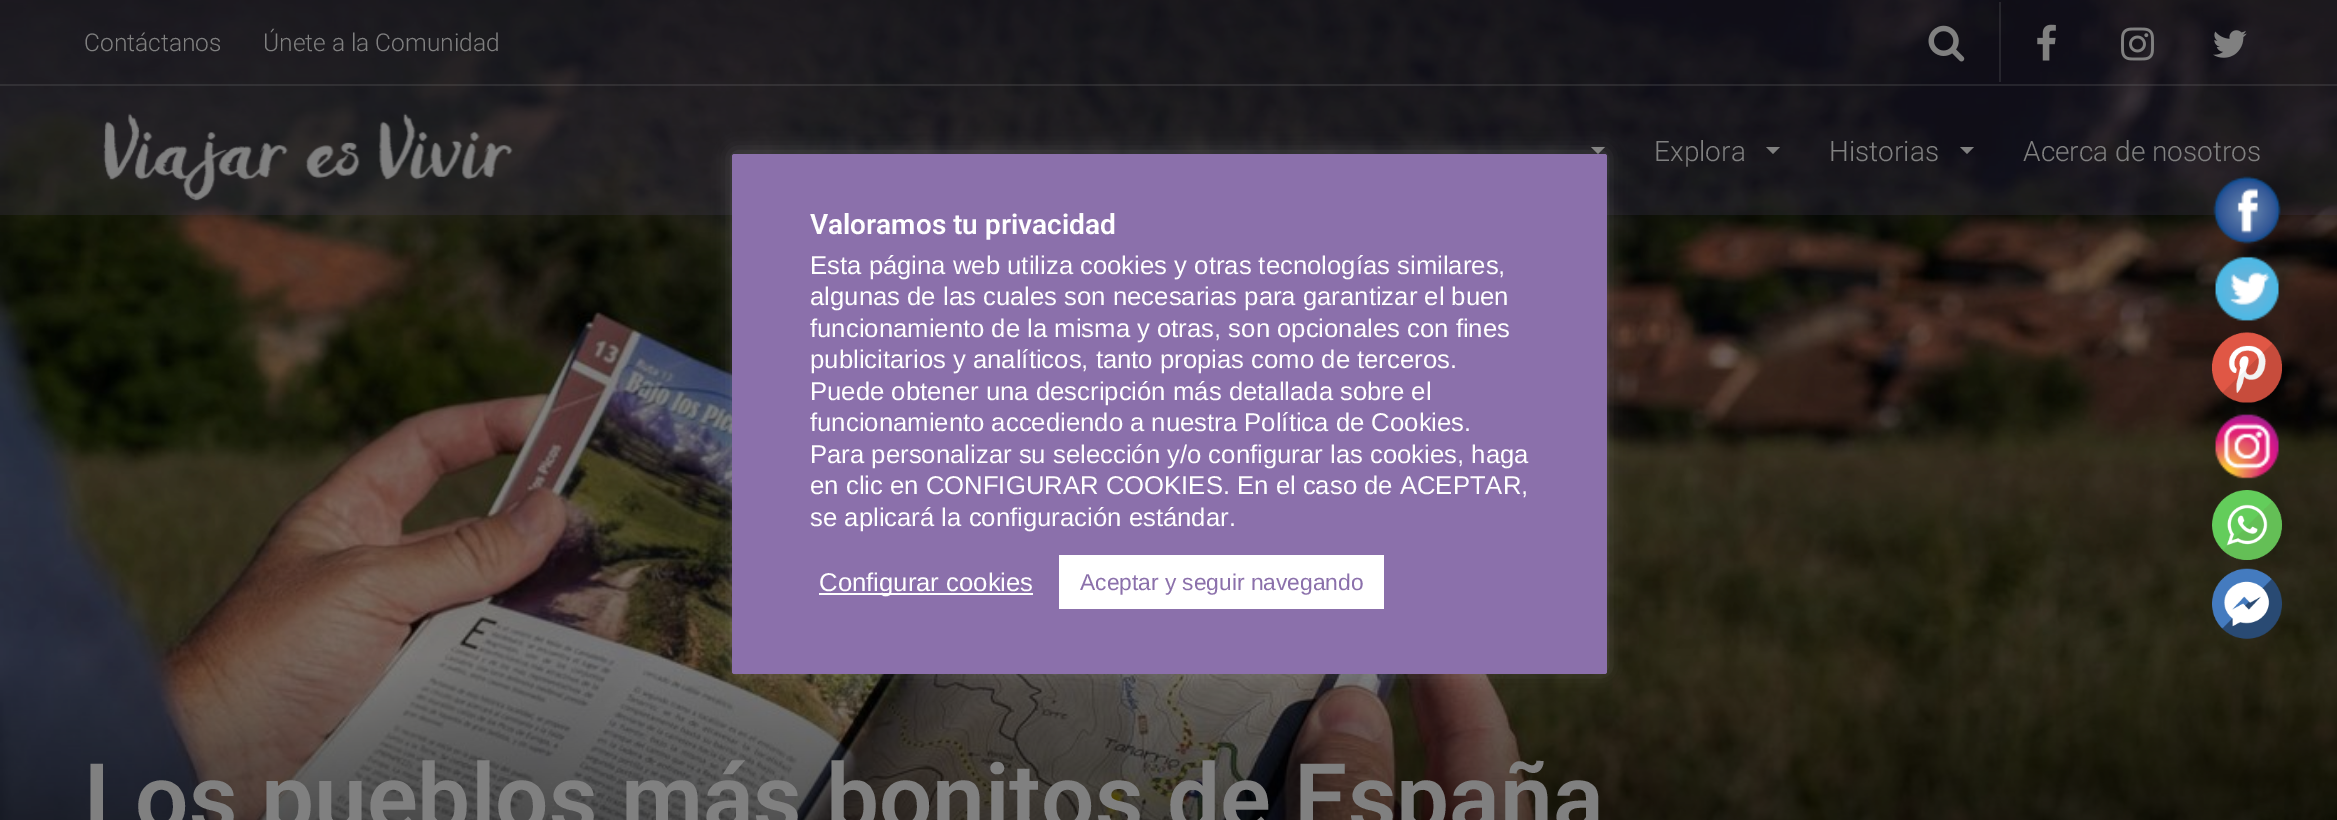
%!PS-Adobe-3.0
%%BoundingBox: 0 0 2337 820
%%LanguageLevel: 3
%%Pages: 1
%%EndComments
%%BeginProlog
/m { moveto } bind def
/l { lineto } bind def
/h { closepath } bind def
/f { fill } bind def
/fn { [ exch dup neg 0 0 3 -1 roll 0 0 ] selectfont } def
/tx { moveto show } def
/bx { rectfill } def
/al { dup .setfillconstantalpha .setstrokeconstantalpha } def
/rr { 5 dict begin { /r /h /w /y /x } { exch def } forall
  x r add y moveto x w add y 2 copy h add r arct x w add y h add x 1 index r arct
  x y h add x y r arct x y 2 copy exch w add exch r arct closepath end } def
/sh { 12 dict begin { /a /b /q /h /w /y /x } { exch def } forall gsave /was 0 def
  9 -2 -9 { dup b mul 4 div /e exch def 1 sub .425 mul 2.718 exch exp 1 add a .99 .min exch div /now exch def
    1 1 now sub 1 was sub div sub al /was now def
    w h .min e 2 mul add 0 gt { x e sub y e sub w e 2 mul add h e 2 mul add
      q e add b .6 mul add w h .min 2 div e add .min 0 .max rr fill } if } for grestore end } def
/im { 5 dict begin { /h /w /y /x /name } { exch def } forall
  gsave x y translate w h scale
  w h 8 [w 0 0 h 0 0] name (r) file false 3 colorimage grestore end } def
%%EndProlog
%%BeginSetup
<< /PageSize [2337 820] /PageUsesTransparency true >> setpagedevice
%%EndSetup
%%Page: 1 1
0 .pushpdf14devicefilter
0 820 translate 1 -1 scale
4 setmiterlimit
1 setgray
0 0 2337 820 bx
(image11.raw) 0 0 2337 820 im
0.25 al
0.255 0.22 0.333 setrgbcolor
0 0 2337 215 bx
0.2 al
0.502 setgray
0 84 2337 2 bx
/Roboto-Light 24.5 fn
1 al
(Contáctanos) 84 51 tx
(Únete a la Comunidad) 263 51 tx
0.2 al
1999 2 2 80 bx
1 al
(image0.raw) 1928 25 37 37 im
(image1.raw) 2037 24 19 37 im
(image2.raw) 2121 27 33 34 im
(image3.raw) 2213 30 34 28 im
(image4.raw) 103 113 410 88 im
1591 147 m 1605 147 l 1598 154 l h f
/Roboto-Light 28 fn
(Explora) 1654 161 tx
1766 147 m 1780 147 l 1773 154 l h f
(Historias) 1829 161 tx
1960 147 m 1974 147 l 1967 154 l h f
(Acerca de nosotros) 2023 161 tx
0.675 0.671 0.671 setrgbcolor
732 152 875 520 2.5 9 0.3 sh
0.545 0.439 0.671 setrgbcolor
732 154 875 520 2.5 rr f
/Roboto-SemiBold 28 fn
1 setgray
(Valoramos tu privacidad) 810 234 tx
/LiberationSans-Regular 25.7 fn
(Esta página web utiliza cookies y otras tecnologías similares,) 810 274 tx
(algunas de las cuales son necesarias para garantizar el buen) 810 305 tx
(funcionamiento de la misma y otras, son opcionales con fines) 810 337 tx
(publicitarios y analíticos, tanto propias como de terceros.) 810 368 tx
(Puede obtener una descripción más detallada sobre el) 810 400 tx
(funcionamiento accediendo a nuestra Política de Cookies.) 810 431 tx
(Para personalizar su selección y/o configurar las cookies, haga) 810 463 tx
(en clic en CONFIGURAR COOKIES. En el caso de ACEPTAR,) 810 494 tx
(se aplicará la configuración estándar.) 810 526 tx
819 593 214 2 bx
(Configurar cookies) 819 591 tx
1059 555 325 54 bx
/LiberationSans-Regular 22.75 fn
0.545 0.439 0.671 setrgbcolor
(Aceptar y seguir navegando) 1080 590 tx
(image5.raw) 2213 176 68 68 im
(image6.raw) 2215 256 64 65 im
(image7.raw) 2212 332 70 71 im
(image8.raw) 2215 414 64 65 im
(image9.raw) 2212 490 70 70 im
(image10.raw) 2212 568 70 71 im
/Roboto-SemiBold 94.5 fn
0.502 setgray
(Los pueblos más bonitos de España) 84 831 tx
.poppdf14devicefilter showpage
%%EOF
